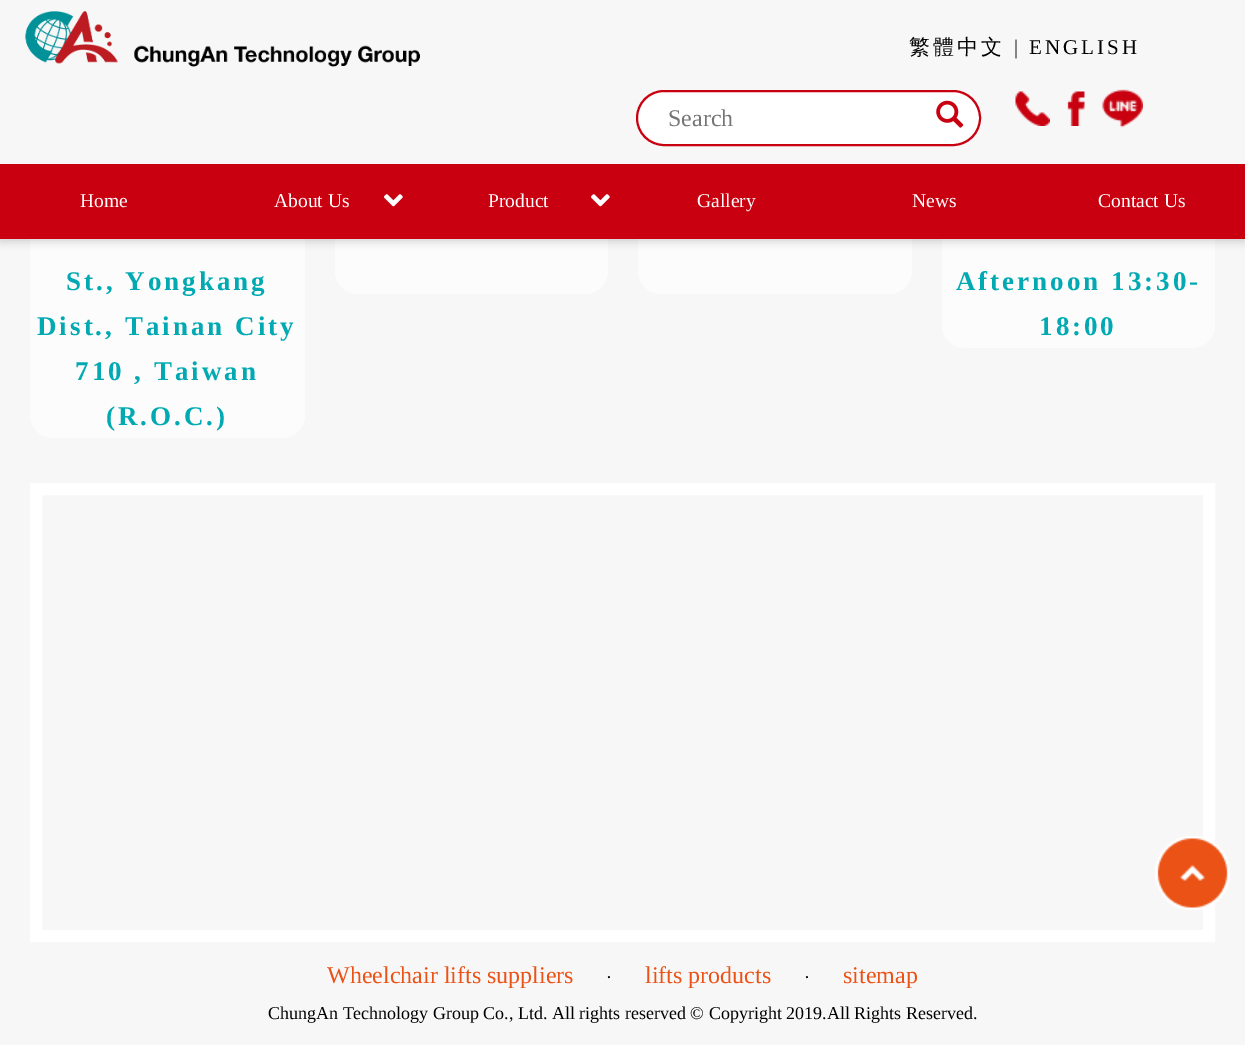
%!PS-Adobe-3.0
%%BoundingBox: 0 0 1245 1045
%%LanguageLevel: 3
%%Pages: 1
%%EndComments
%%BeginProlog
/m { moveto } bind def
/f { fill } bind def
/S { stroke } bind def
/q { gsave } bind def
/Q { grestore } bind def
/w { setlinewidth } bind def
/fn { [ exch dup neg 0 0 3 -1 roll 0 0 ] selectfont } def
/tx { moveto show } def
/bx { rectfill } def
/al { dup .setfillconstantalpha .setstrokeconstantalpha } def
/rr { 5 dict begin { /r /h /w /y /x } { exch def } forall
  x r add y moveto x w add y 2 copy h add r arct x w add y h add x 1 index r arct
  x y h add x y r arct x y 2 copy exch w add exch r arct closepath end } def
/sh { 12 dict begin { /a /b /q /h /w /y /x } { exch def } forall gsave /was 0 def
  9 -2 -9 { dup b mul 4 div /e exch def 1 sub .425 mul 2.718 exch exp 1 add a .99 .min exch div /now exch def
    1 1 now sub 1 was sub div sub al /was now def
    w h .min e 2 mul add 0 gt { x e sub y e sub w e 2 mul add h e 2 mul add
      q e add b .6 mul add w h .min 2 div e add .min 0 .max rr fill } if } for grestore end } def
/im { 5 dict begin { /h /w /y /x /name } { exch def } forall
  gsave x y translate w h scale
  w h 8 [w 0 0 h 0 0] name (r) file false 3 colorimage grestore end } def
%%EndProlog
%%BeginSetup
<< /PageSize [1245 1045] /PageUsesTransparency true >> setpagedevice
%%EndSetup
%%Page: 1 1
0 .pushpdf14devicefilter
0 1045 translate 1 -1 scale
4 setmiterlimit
0.969 setgray
0 0 1245 1045 bx
0.988 setgray
335 -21 273 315 23 rr f
638 -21 274 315 23 rr f
30 -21 275 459 23 rr f
942 -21 273 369 23 rr f
0 setgray
0 3 1245 239 0 4.5 0.16 sh
0.969 setgray
0 0 1245 164 bx
(image0.raw) 25 11 395 56 im
/WenQuanYiZenHei-Medium 21 fn
0 setgray
909 54 m 3 0 (繁體中文) ashow
/LiberationSerif-Regular 21 fn
0.129 setgray
1014 54 m 3 0 (|) ashow
0 setgray
1029 54 m 3 0 (ENGLISH) ashow
1 setgray
637 91 343 54 27 rr q f Q
0.784 0 0.059 setrgbcolor
2 w
S
/LiberationSerif-Regular 24 fn
0.459 setgray
(Search) 668 126 tx
(image1.raw) 936 100 28 28 im
(image2.raw) 1015 91 35 35 im
(image3.raw) 1067 91 18 35 im
(image4.raw) 1102 89 41 39 im
0.784 0 0.059 setrgbcolor
0 164 1245 75 bx
/LiberationSerif-Regular 19.5 fn
1 setgray
(Home) 80 207 tx
(About Us) 274 207 tx
(image5.raw) 384 194 19 13 im
(Product) 488 207 tx
(image5.raw) 591 194 19 13 im
(Gallery) 697 207 tx
(News) 912 207 tx
(Contact Us) 1098 207 tx
/LiberationSerif-Bold 27 fn
0.004 0.663 0.698 setrgbcolor
66 290 m 3 0 (St., Yongkang) ashow
37 335 m 3 0 (Dist., Tainan City) ashow
75 380 m 3 0 (710 , Taiwan) ashow
106 425 m 3 0 (\(R.O.C.\)) ashow
956 290 m 3 0 (Afternoon 13:30-) ashow
1039 335 m 3 0 (18:00) ashow
1 setgray
12 w
36 489 1173 447 rectstroke
/LiberationSerif-Regular 24 fn
0.922 0.322 0.086 setrgbcolor
(Wheelchair lifts suppliers) 327 983 tx
/LiberationSerif-Regular 18 fn
0 setgray
(·) 606 983 tx
/LiberationSerif-Regular 24 fn
0.922 0.322 0.086 setrgbcolor
(lifts products) 645 983 tx
/LiberationSerif-Regular 18 fn
0 setgray
(·) 804 983 tx
/LiberationSerif-Regular 24 fn
0.922 0.322 0.086 setrgbcolor
(sitemap) 843 983 tx
/LiberationSerif-Regular 18 fn
0 setgray
(ChungAn Technology Group Co., Ltd. All rights reserved © Copyright 2019.All Rights Reserved.) 268 1019 tx
(image6.raw) 1155 836 75 74 im
.poppdf14devicefilter showpage
%%EOF
